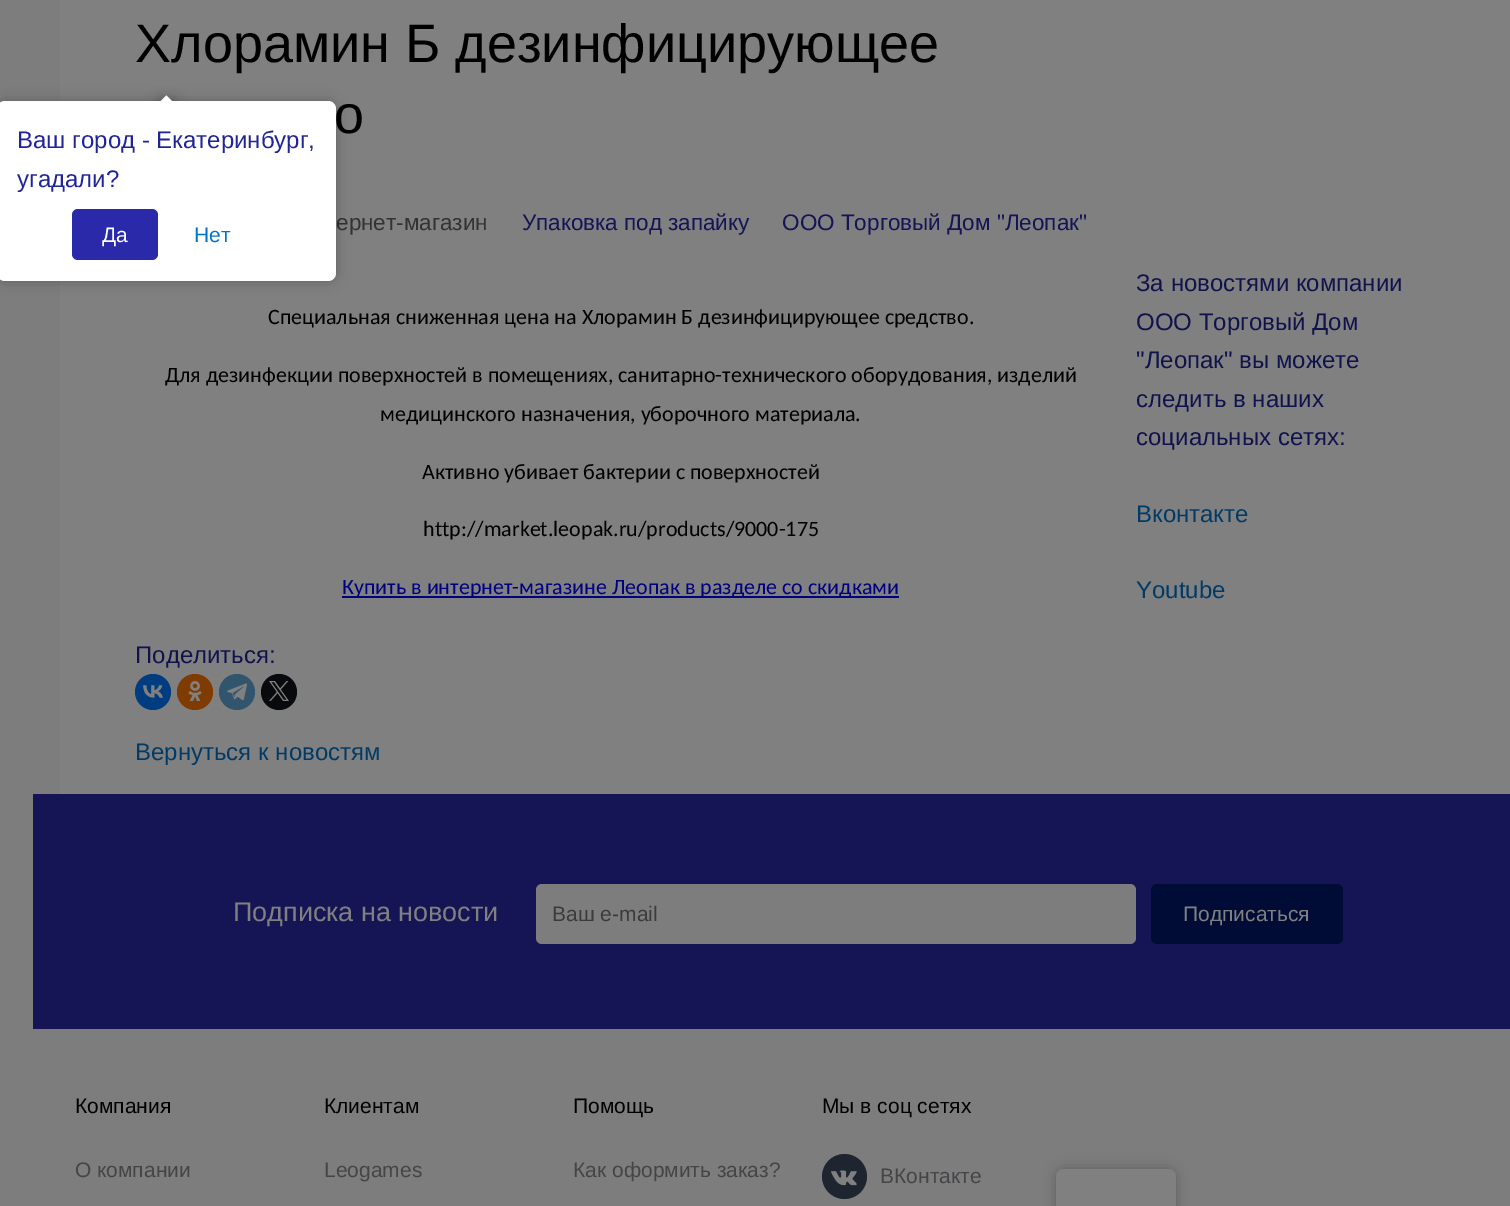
%!PS-Adobe-3.0
%%BoundingBox: 0 0 1510 1206
%%LanguageLevel: 3
%%Pages: 1
%%EndComments
%%BeginProlog
/m { moveto } bind def
/l { lineto } bind def
/h { closepath } bind def
/f { fill } bind def
/q { gsave } bind def
/Q { grestore } bind def
/fn { [ exch dup neg 0 0 3 -1 roll 0 0 ] selectfont } def
/tx { moveto show } def
/bx { rectfill } def
/al { dup .setfillconstantalpha .setstrokeconstantalpha } def
/ci { newpath 0 360 arc closepath } def
/rr { 5 dict begin { /r /h /w /y /x } { exch def } forall
  x r add y moveto x w add y 2 copy h add r arct x w add y h add x 1 index r arct
  x y h add x y r arct x y 2 copy exch w add exch r arct closepath end } def
/sh { 12 dict begin { /a /b /q /h /w /y /x } { exch def } forall gsave /was 0 def
  9 -2 -9 { dup b mul 4 div /e exch def 1 sub .425 mul 2.718 exch exp 1 add a .99 .min exch div /now exch def
    1 1 now sub 1 was sub div sub al /was now def
    w h .min e 2 mul add 0 gt { x e sub y e sub w e 2 mul add h e 2 mul add
      q e add b .6 mul add w h .min 2 div e add .min 0 .max rr fill } if } for grestore end } def
/im { 5 dict begin { /h /w /y /x /name } { exch def } forall
  gsave x y translate w h scale
  w h 8 [w 0 0 h 0 0] name (r) file false 3 colorimage grestore end } def
%%EndProlog
%%BeginSetup
<< /PageSize [1510 1206] /PageUsesTransparency true >> setpagedevice
%%EndSetup
%%Page: 1 1
0 .pushpdf14devicefilter
0 1206 translate 1 -1 scale
4 setmiterlimit
0.49 setgray
0 0 1510 1206 bx
0.502 setgray
60 0 1450 794 bx
/LiberationSans-Regular 54 fn
0 setgray
(Хлорамин Б дезинфицирующее) 135 62 tx
(о) 334 133 tx
/LiberationSans-Regular 22.5 fn
0.2 setgray
(ернет-магазин) 336 230 tx
0.082 0.082 0.333 setrgbcolor
(Упаковка под запайку) 522 230 tx
(ООО Торговый Дом "Леопак") 782 230 tx
/Carlito-Regular 22 fn
0 setgray
(Специальная сниженная цена на Хлорамин Б дезинфицирующее средство.) 268 324 tx
(Для дезинфекции поверхностей в помещениях, санитарно-технического оборудования, изделий) 165 382 tx
(медицинского назначения, уборочного материала.) 380 421 tx
(Активно убивает бактерии с поверхностей) 422 479 tx
(http://market.leopak.ru/products/9000-175) 423 536 tx
0 0 0.502 setrgbcolor
342 596 557 2 bx
(Купить в интернет-магазине Леопак в разделе со скидками) 342 594 tx
/LiberationSans-Regular 24 fn
0.063 0.071 0.298 setrgbcolor
(Поделиться:) 135 663 tx
0 0.235 0.502 setrgbcolor
153 692 18 ci f
(image0.raw) 143 685 20 13 im
0.502 0.235 0 setrgbcolor
195 692 18 ci f
(image1.raw) 188 681 14 20 im
0.196 0.333 0.431 setrgbcolor
237 692 18 ci f
(image2.raw) 227 683 20 18 im
0.031 0.039 0.051 setrgbcolor
279 692 18 ci f
(image3.raw) 269 681 20 20 im
0 0.227 0.4 setrgbcolor
(Вернуться к новостям) 135 760 tx
0.063 0.071 0.298 setrgbcolor
(За новостями компании) 1136 291 tx
(ООО Торговый Дом) 1136 330 tx
("Леопак" вы можете) 1136 368 tx
(следить в наших) 1136 407 tx
(социальных сетях:) 1136 445 tx
0 0.227 0.4 setrgbcolor
(Вконтакте) 1136 522 tx
(Youtube) 1136 598 tx
0.082 0.082 0.333 setrgbcolor
33 794 1477 235 bx
/LiberationSans-Regular 27 fn
0.502 setgray
(Подписка на новости) 233 921 tx
0.49 setgray
536 884 600 60 6 rr f
/LiberationSans-Regular 21 fn
0.231 setgray
(Ваш e-mail) 552 921 tx
0 0.047 0.208 setrgbcolor
1151 884 192 60 6 rr f
0.502 setgray
(Подписаться) 1183 921 tx
0 setgray
(Компания) 75 1113 tx
0.271 0.271 0.282 setrgbcolor
(О компании) 75 1177 tx
0 setgray
(Клиентам) 324 1113 tx
0.271 0.271 0.282 setrgbcolor
(Leogames) 324 1177 tx
0 setgray
(Помощь) 573 1113 tx
0.271 0.271 0.282 setrgbcolor
(Как оформить заказ?) 573 1177 tx
0 setgray
(Мы в соц сетях) 822 1113 tx
0.118 0.145 0.188 setrgbcolor
844.5 1176.5 22.5 ci f
(image4.raw) 831 1170 26 16 im
0.271 0.271 0.282 setrgbcolor
(ВКонтакте) 880 1183 tx
0 setgray
1056 1169 120 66 8 7 0.25 sh
0.502 setgray
1056 1169 120 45 8 rr f
0 setgray
-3 101 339 180 8 7 0.25 sh
1 setgray
-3 101 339 180 8 rr f
q
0 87 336 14 rectclip
0 setgray
159 99 15 15 0 7 0.25 sh
Q
q
0 87 336 14 rectclip
166.5 95.5 m 177 106 l 166.5 117 l 155.5 106 l h f
Q
/LiberationSans-Regular 24 fn
0.122 0.141 0.592 setrgbcolor
(Ваш город - Екатеринбург,) 17 148 tx
(угадали?) 17 187 tx
0.161 0.161 0.663 setrgbcolor
72 209 86 51 6 rr f
/LiberationSans-Regular 21 fn
1 setgray
(Да) 102 242 tx
0 0.455 0.8 setrgbcolor
(Нет) 194 242 tx
.poppdf14devicefilter showpage
%%EOF
